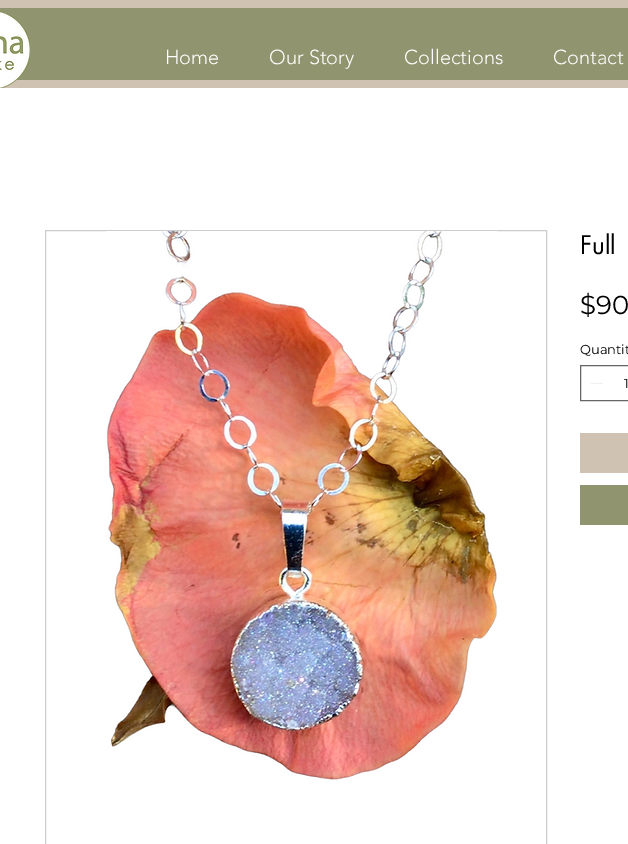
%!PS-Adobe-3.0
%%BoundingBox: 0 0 628 844
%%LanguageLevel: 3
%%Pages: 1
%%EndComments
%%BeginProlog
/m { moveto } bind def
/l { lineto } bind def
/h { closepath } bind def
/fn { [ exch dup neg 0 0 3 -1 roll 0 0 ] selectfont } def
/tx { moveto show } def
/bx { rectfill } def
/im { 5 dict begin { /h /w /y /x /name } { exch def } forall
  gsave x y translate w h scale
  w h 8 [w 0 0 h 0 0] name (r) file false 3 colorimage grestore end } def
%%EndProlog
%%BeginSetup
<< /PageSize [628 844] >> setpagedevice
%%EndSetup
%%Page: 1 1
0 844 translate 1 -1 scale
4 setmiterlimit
0.569 0.584 0.435 setrgbcolor
0 0 628 844 bx
0.812 0.761 0.698 setrgbcolor
0 0 628 8 bx
0 80 628 8 bx
(image0.raw) 0 11 30 77 im
/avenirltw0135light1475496-Light 20 fn
1 setgray
(Home) 165 64 tx
(Our Story) 269 64 tx
(Collections) 404 64 tx
(Contact) 553 64 tx
0 88 628 756 bx
0.8 setgray
45.5 230.5 501 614 rectstroke
(image1.raw) 106 231 391 549 im
/futura-Regular 25 fn
0 setgray
(Full) 580 254 tx
/Montserrat-Regular 26 fn
($90) 580 314 tx
/Montserrat-Regular 13 fn
(Quantit) 580 354 tx
0.4 setgray
580.5 365.5 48 35 rectstroke
0.89 setgray
603 383 m 603 383.5 l 591 383.5 l 591 383 l h eofill
0 setgray
(1) 624 388 tx
0.812 0.761 0.698 setrgbcolor
580 433 48 40 bx
0.569 0.584 0.435 setrgbcolor
580 485 48 40 bx
showpage
%%EOF
